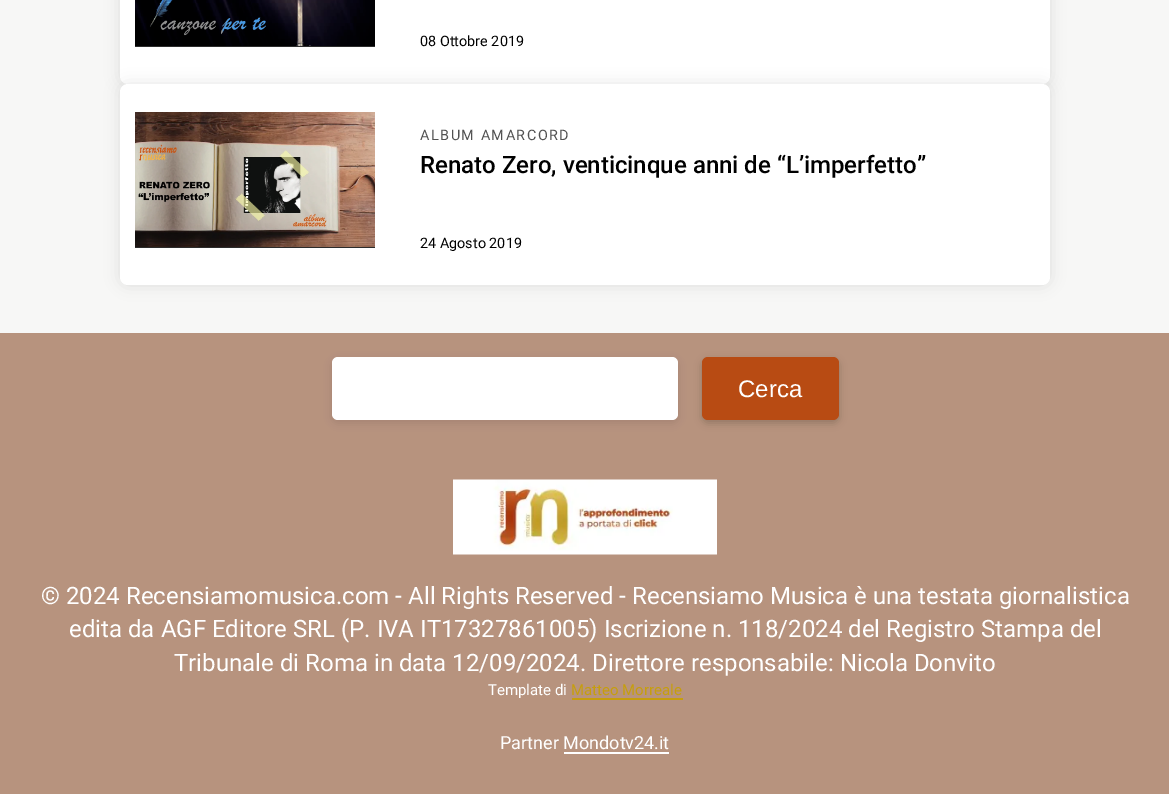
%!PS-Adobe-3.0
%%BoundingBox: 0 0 1169 794
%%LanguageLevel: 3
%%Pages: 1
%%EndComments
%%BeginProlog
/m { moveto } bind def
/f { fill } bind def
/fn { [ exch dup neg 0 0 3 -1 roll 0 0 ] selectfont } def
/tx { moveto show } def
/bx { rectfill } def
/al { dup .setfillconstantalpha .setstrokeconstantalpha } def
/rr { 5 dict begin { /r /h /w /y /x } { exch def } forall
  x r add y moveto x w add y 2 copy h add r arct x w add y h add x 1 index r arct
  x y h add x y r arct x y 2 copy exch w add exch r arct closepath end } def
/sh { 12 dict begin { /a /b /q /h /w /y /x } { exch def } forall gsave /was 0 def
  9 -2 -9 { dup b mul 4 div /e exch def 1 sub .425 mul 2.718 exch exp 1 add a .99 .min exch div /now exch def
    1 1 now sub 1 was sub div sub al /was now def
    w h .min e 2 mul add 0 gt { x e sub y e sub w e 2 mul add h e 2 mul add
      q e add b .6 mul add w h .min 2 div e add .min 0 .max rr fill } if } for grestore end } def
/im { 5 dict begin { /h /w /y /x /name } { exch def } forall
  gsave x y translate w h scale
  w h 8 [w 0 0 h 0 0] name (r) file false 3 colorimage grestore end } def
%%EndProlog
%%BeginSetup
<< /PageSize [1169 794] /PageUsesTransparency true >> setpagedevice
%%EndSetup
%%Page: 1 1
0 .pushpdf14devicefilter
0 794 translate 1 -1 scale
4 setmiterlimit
0.969 0.969 0.965 setrgbcolor
0 0 1169 794 bx
0 setgray
120 -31 930 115 8 7.5 0.1 sh
1 setgray
120 -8 930 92 8 rr f
(image0.raw) 135 0 240 46 im
0.173 setgray
135 46 240 1 bx
/Roboto-Regular 14.4 fn
0 setgray
(08 Ottobre 2019) 420 46 tx
120 84 930 201 8 7.5 0.1 sh
1 setgray
120 84 930 201 8 rr f
(image1.raw) 135 112 240 135 im
0.173 setgray
135 247 240 1 bx
0.318 setgray
420 140 m 1.5 0 (ALBUM AMARCORD) ashow
/Roboto-Medium 24 fn
0 setgray
(Renato Zero, venticinque anni de “L’imperfetto”) 420 173 tx
/Roboto-Regular 14.4 fn
(24 Agosto 2019) 420 248 tx
0.718 0.576 0.494 setrgbcolor
0 333 1169 461 bx
0 setgray
332 360 346 63 6 4 0.1 sh
1 setgray
332 357 346 63 6 rr f
0 setgray
702 360 137 63 6 4 0.2 sh
0.722 0.294 0.075 setrgbcolor
702 357 137 63 6 rr f
/LiberationSans-Regular 24 fn
1 setgray
(Cerca) 738 397 tx
(image2.raw) 453 479 264 76 im
/Roboto-Regular 24 fn
(© 2024 Recensiamomusica.com - All Rights Reserved - Recensiamo Musica è una testata giornalistica) 41 604 tx
(edita da AGF Editore SRL \(P. IVA IT17327861005\) Iscrizione n. 118/2024 del Registro Stampa del) 69 637 tx
(Tribunale di Roma in data 12/09/2024. Direttore responsabile: Nicola Donvito) 174 671 tx
/Roboto-Regular 15 fn
(Template di) 488 695 tx
0.776 0.62 0.051 setrgbcolor
(Matteo Morreale) 571 695 tx
572 698 111 2 bx
/Roboto-Regular 18 fn
1 setgray
(Partner Mondotv24.it) 500 749 tx
564 752 105 2 bx
.poppdf14devicefilter showpage
%%EOF
